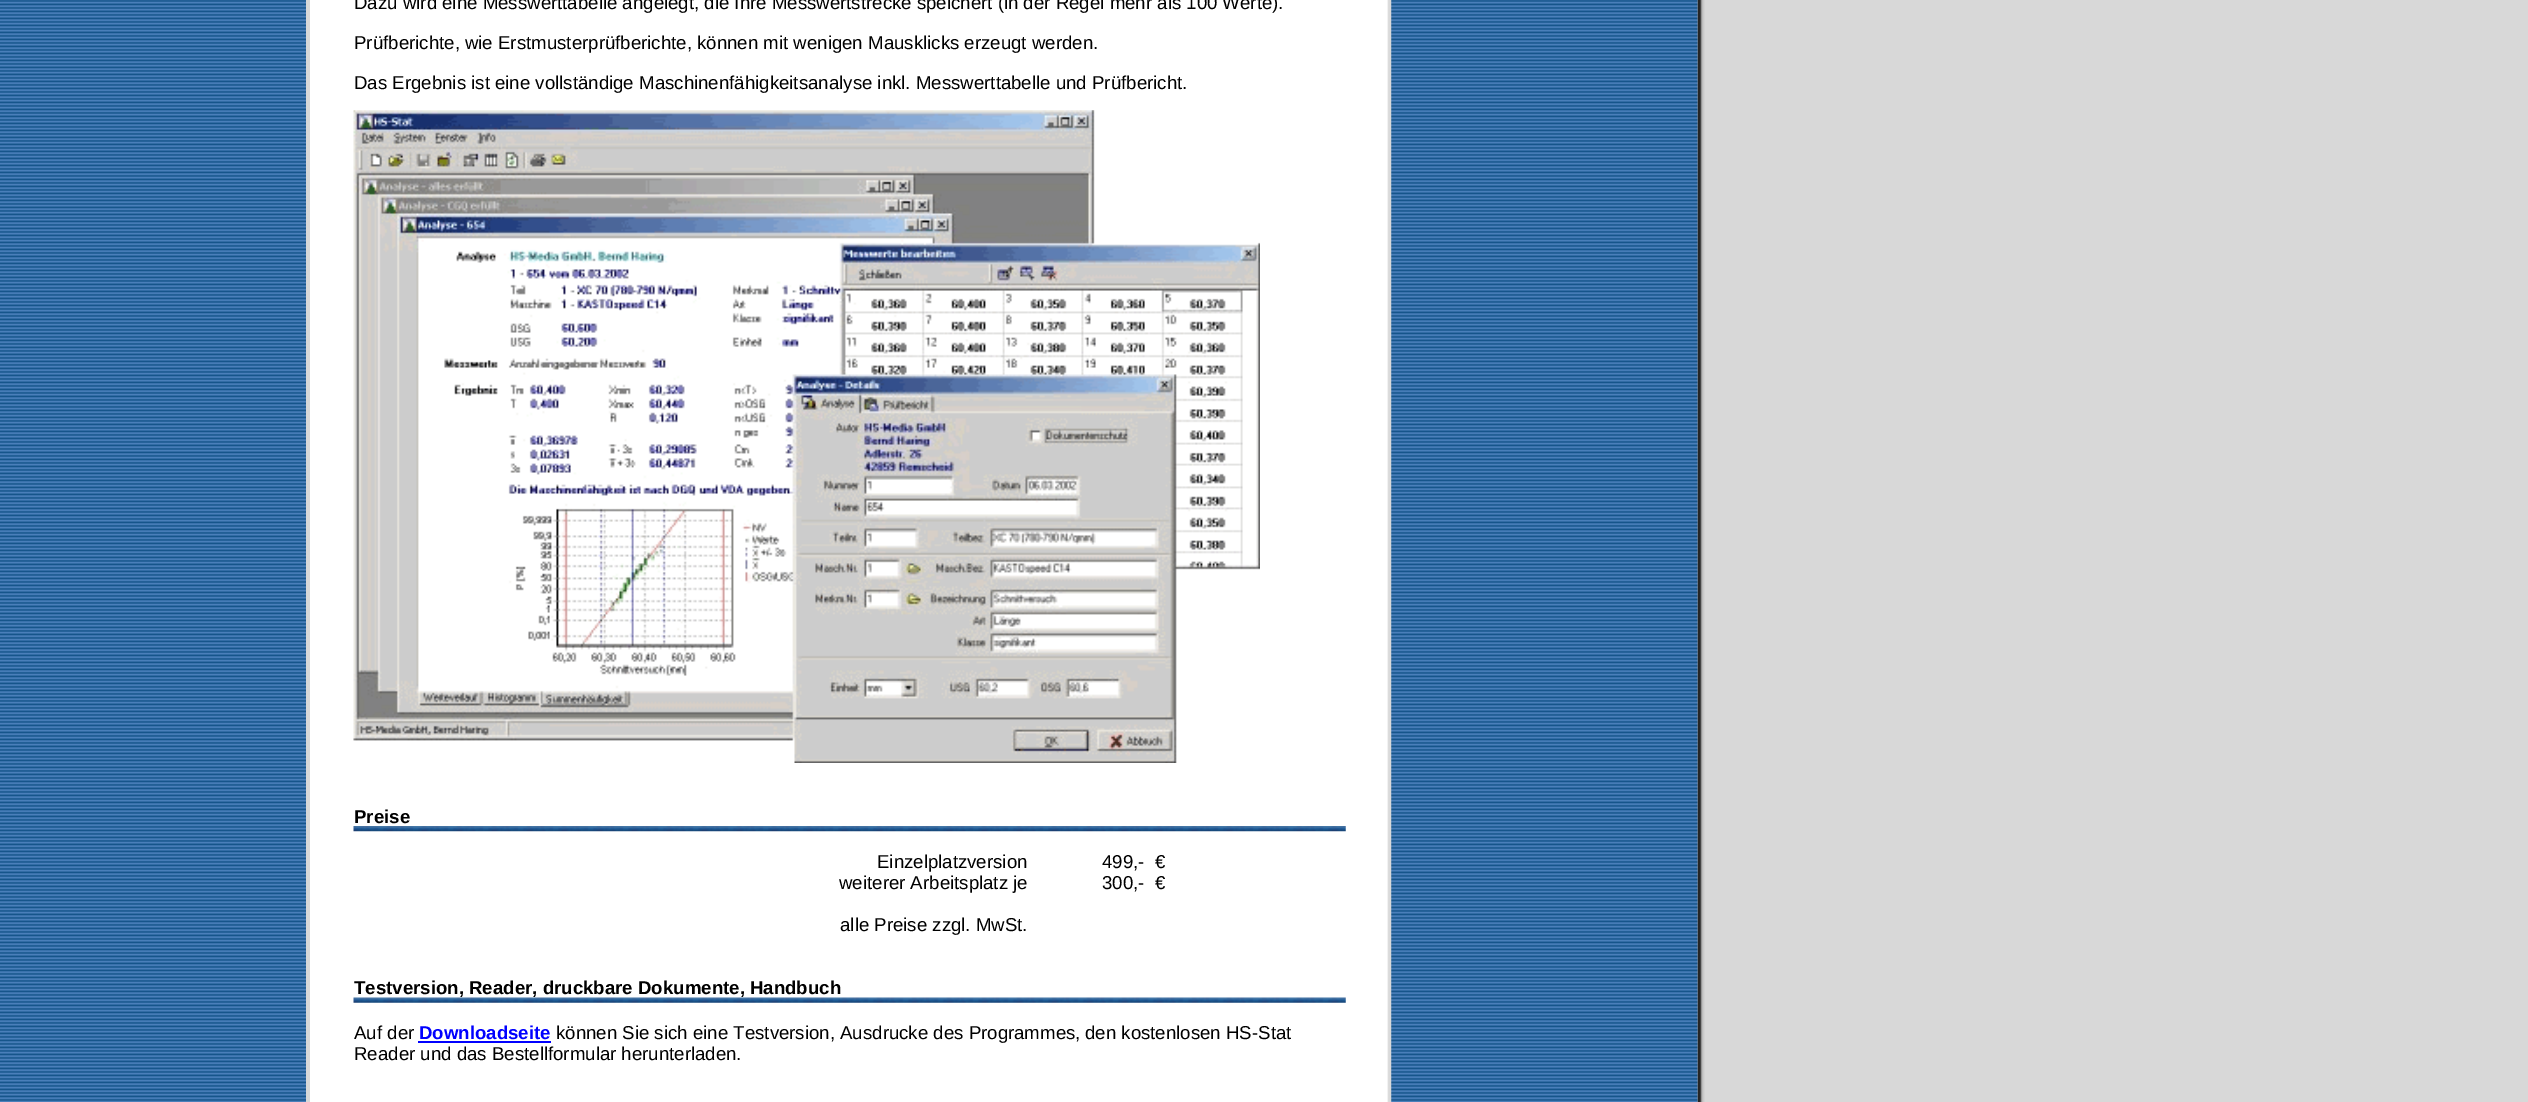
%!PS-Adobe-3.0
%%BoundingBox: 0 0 2528 1102
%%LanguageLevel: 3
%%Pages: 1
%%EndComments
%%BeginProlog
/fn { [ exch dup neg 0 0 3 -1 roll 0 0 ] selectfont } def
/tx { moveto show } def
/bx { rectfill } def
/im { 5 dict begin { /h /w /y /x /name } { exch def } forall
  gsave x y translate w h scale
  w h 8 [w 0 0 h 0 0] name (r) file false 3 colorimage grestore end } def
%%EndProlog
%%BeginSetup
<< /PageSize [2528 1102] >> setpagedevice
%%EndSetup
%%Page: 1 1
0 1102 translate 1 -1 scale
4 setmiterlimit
0.847 setgray
0 0 2528 1102 bx
(image0.raw) 0 0 306 1102 im
1 setgray
310 0 1079 1102 bx
/LiberationSans-Regular 18.65 fn
0 setgray
(Dazu wird eine Messwerttabelle angelegt, die Ihre Messwertstrecke speichert \(in der Regel mehr als 100 Werte\).) 354 9 tx
(Prüfberichte, wie Erstmusterprüfberichte, können mit wenigen Mausklicks erzeugt werden.) 354 49 tx
(Das Ergebnis ist eine vollständige Maschinenfähigkeitsanalyse inkl. Messwerttabelle und Prüfbericht.) 354 89 tx
(image1.raw) 353 110 907 653 im
/LiberationSans-Bold 18.65 fn
(Preise) 354 823 tx
(image2.raw) 353 826 993 6 im
/LiberationSans-Regular 18.65 fn
(Einzelplatzversion) 877 868 tx
(499,-) 1102 868 tx
(€) 1155 868 tx
(weiterer Arbeitsplatz je) 839 889 tx
(300,-) 1102 889 tx
(€) 1155 889 tx
(alle Preise zzgl. MwSt.) 840 931 tx
/LiberationSans-Bold 18.65 fn
(Testversion, Reader, druckbare Dokumente, Handbuch) 354 994 tx
(image3.raw) 353 997 993 6 im
/LiberationSans-Regular 18.65 fn
(Auf der) 354 1039 tx
/LiberationSans-Bold 18.65 fn
0 0 1 setrgbcolor
(Downloadseite) 419 1039 tx
418 1041 133 2 bx
/LiberationSans-Regular 18.65 fn
0 setgray
(können Sie sich eine Testversion, Ausdrucke des Programmes,) 556 1039 tx
(den kostenlosen HS-Stat) 1085 1039 tx
(Reader und das Bestellformular herunterladen.) 354 1060 tx
(image4.raw) 1387 0 4 1102 im
(image6.raw) 1697 0 8 1102 im
(image5.raw) 1391 0 307 1102 im
showpage
%%EOF
